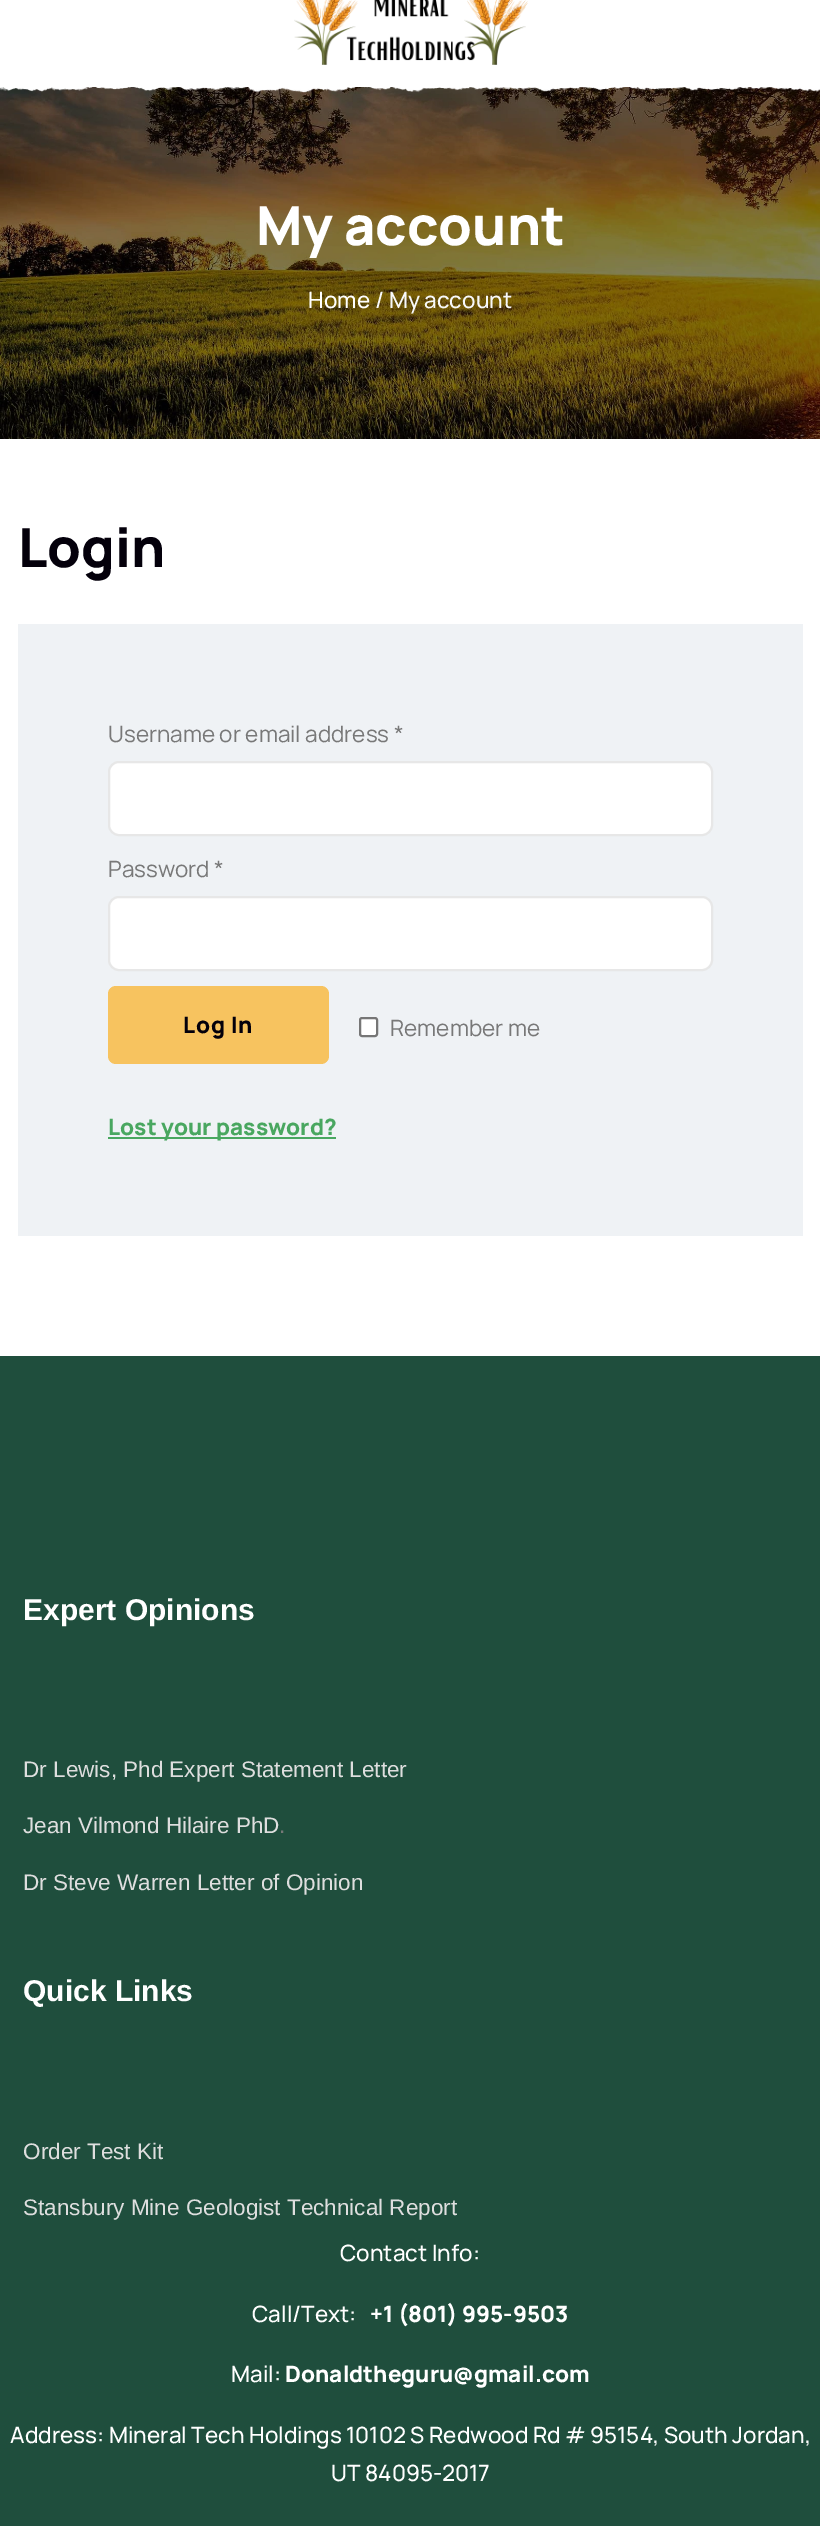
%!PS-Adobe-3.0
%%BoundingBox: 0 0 820 2526
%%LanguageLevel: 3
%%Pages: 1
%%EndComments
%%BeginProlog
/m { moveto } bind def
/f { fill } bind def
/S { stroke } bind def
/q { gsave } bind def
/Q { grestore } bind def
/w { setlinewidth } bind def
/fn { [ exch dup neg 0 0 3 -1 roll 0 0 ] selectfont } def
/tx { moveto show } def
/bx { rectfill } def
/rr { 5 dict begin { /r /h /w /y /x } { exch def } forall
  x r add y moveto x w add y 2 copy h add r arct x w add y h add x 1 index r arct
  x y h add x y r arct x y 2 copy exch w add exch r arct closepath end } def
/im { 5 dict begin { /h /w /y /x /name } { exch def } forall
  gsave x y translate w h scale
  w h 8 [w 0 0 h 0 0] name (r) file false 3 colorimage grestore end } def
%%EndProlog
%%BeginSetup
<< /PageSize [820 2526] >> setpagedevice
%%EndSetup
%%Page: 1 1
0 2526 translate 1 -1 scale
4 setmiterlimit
1 setgray
0 0 820 2526 bx
(image0.raw) 294 0 234 65 im
(image2.raw) 0 87 820 352 im
(image1.raw) 0 87 820 6 im
/Manrope-ExtraBold 54 fn
(My account) 256 245 tx
/Manrope-Medium 22.5 fn
(Home) 308 308 tx
0.973 0.976 0.98 setrgbcolor
(/ My account) 375 308 tx
/Manrope-ExtraBold 54 fn
0.016 0 0.043 setrgbcolor
(Login) 18 567 tx
0.937 0.949 0.961 setrgbcolor
18 624 785 612 bx
/Manrope-Regular 22.5 fn
0.471 setgray
(Username or email address *) 108 742 tx
1 setgray
109 762 603 73 10 rr q f Q
0.906 setgray
2 w
S
0.471 setgray
(Password *) 108 877 tx
1 setgray
109 897 603 73 10 rr q f Q
0.906 setgray
S
0.969 0.765 0.373 setrgbcolor
108 986 221 78 8 rr f
/Manrope-ExtraBold 22.5 fn
0.016 0 0.043 setrgbcolor
183 1033 m 0.75 0 (Log In) ashow
1 setgray
360 1018 17 18 2 rr q f Q
0.463 setgray
S
/Manrope-Regular 22.5 fn
0.471 setgray
(Remember me) 390 1036 tx
0.286 0.655 0.376 setrgbcolor
108 1137 228 2 bx
/Manrope-ExtraBold 22.5 fn
(Lost your password?) 108 1135 tx
0.122 0.306 0.239 setrgbcolor
0 1356 820 1170 bx
/LiberationSans-Bold 30 fn
1 setgray
(Expert Opinions) 23 1620 tx
/LiberationSans-Regular 22.5 fn
0.871 setgray
(Dr Lewis, Phd Expert Statement Letter) 23 1777 tx
(Jean Vilmond Hilaire PhD) 23 1833 tx
0.471 setgray
(.) 279 1833 tx
0.871 setgray
(Dr Steve Warren Letter of Opinion) 23 1890 tx
/LiberationSans-Bold 30 fn
1 setgray
(Quick Links) 23 2001 tx
/LiberationSans-Regular 22.5 fn
0.871 setgray
(Order Test Kit) 23 2159 tx
(Stansbury Mine Geologist Technical Report) 23 2215 tx
/Manrope-Medium 22.5 fn
1 setgray
(Contact Info:) 340 2261 tx
(Call/Text:) 252 2322 tx
/Manrope-ExtraBold 22.5 fn
(+1 \(801\) 995-9503) 370 2322 tx
/Manrope-Medium 22.5 fn
(Mail:) 231 2382 tx
/Manrope-ExtraBold 22.5 fn
(Donaldtheguru@gmail.com) 285 2382 tx
/Manrope-Medium 22.5 fn
(Address: Mineral Tech Holdings 10102 S Redwood Rd # 95154, South Jordan,) 10 2443 tx
(UT 84095-2017) 331 2481 tx
showpage
%%EOF
